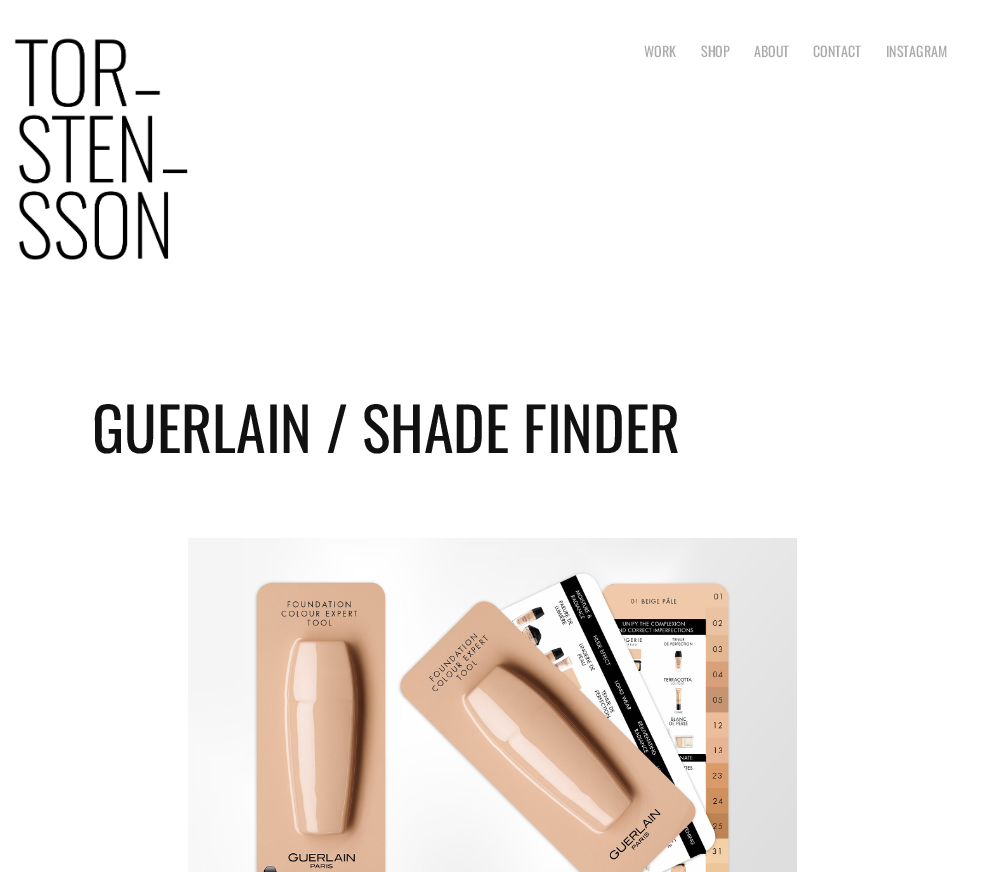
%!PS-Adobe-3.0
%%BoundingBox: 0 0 985 872
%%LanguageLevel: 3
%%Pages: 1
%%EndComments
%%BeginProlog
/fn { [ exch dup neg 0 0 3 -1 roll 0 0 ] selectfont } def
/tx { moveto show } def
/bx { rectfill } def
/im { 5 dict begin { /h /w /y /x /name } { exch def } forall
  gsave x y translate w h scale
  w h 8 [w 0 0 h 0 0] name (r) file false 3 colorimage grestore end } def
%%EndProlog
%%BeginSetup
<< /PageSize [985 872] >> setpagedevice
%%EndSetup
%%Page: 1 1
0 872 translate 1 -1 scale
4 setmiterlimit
1 setgray
0 0 985 872 bx
(image0.raw) 14 38 174 222 im
/Oswald-Regular 14 fn
0.667 setgray
(WORK) 644 57 tx
(SHOP) 701 57 tx
(ABOUT) 754 57 tx
(CONTACT) 813 57 tx
(INSTAGRAM) 886 57 tx
/Oswald-Regular 60 fn
0.067 setgray
(GUERLAIN / SHADE FINDER) 92 453 tx
(image1.raw) 188 538 609 334 im
showpage
%%EOF
